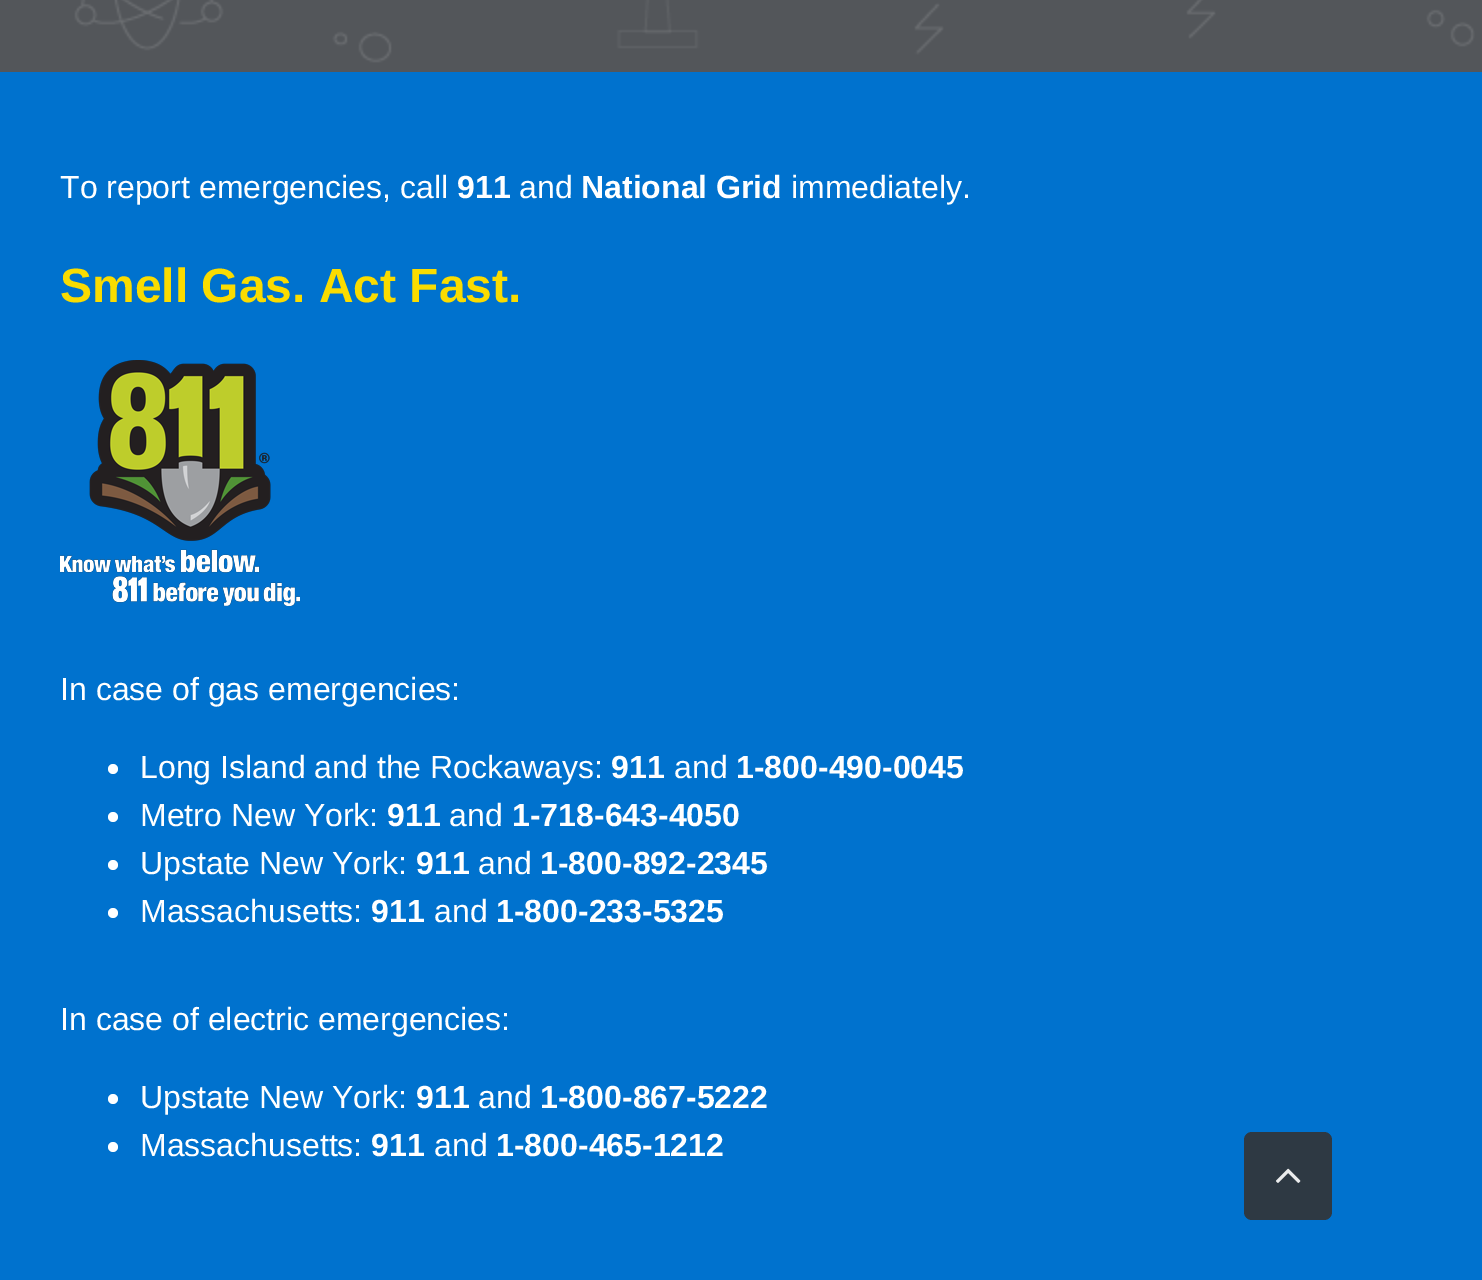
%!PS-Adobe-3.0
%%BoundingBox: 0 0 1482 1280
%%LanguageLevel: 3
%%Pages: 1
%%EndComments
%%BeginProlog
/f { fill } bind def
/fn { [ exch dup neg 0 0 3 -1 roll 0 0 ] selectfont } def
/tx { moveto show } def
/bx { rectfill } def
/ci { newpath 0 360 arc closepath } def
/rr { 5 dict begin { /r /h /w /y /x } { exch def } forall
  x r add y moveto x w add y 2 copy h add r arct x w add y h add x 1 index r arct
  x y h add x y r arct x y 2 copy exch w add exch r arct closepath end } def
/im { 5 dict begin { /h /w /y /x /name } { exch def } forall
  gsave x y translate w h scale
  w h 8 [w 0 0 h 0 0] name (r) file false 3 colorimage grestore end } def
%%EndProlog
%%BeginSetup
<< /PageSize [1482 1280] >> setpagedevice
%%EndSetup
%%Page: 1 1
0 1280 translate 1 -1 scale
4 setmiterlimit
0.325 0.337 0.353 setrgbcolor
0 0 1482 1280 bx
(image0.raw) 74 0 1401 63 im
0 0.447 0.808 setrgbcolor
0 72 1482 1208 bx
/LiberationSans-Regular 32 fn
1 setgray
(To report emergencies, call) 60 198 tx
/LiberationSans-Bold 32 fn
(911) 457 198 tx
/LiberationSans-Regular 32 fn
(and) 519 198 tx
/LiberationSans-Bold 32 fn
(National Grid) 581 198 tx
/LiberationSans-Regular 32 fn
(immediately.) 791 198 tx
/LiberationSans-Bold 48 fn
0.98 0.863 0 setrgbcolor
(Smell Gas. Act Fast.) 60 302 tx
(image1.raw) 60 360 240 246 im
/LiberationSans-Regular 32 fn
1 setgray
(In case of gas emergencies:) 60 700 tx
113 769 5 ci f
(Long Island and the Rockaways:) 140 778 tx
/LiberationSans-Bold 32 fn
(911) 611 778 tx
/LiberationSans-Regular 32 fn
(and) 674 778 tx
/LiberationSans-Bold 32 fn
(1-800-490-0045) 736 778 tx
113 817 5 ci f
/LiberationSans-Regular 32 fn
(Metro New York:) 140 826 tx
/LiberationSans-Bold 32 fn
(911) 387 826 tx
/LiberationSans-Regular 32 fn
(and) 449 826 tx
/LiberationSans-Bold 32 fn
(1-718-643-4050) 512 826 tx
113 865 5 ci f
/LiberationSans-Regular 32 fn
(Upstate New York:) 140 874 tx
/LiberationSans-Bold 32 fn
(911) 416 874 tx
/LiberationSans-Regular 32 fn
(and) 478 874 tx
/LiberationSans-Bold 32 fn
(1-800-892-2345) 540 874 tx
113 913 5 ci f
/LiberationSans-Regular 32 fn
(Massachusetts:) 140 922 tx
/LiberationSans-Bold 32 fn
(911) 371 922 tx
/LiberationSans-Regular 32 fn
(and) 434 922 tx
/LiberationSans-Bold 32 fn
(1-800-233-5325) 496 922 tx
/LiberationSans-Regular 32 fn
(In case of electric emergencies:) 60 1030 tx
113 1099 5 ci f
(Upstate New York:) 140 1108 tx
/LiberationSans-Bold 32 fn
(911) 416 1108 tx
/LiberationSans-Regular 32 fn
(and) 478 1108 tx
/LiberationSans-Bold 32 fn
(1-800-867-5222) 540 1108 tx
113 1147 5 ci f
/LiberationSans-Regular 32 fn
(Massachusetts:) 140 1156 tx
/LiberationSans-Bold 32 fn
(911) 371 1156 tx
/LiberationSans-Regular 32 fn
(and) 434 1156 tx
/LiberationSans-Bold 32 fn
(1-800-465-1212) 496 1156 tx
0.18 0.224 0.263 setrgbcolor
1244 1132 88 88 8 rr f
(image2.raw) 1276 1168 25 15 im
showpage
%%EOF
